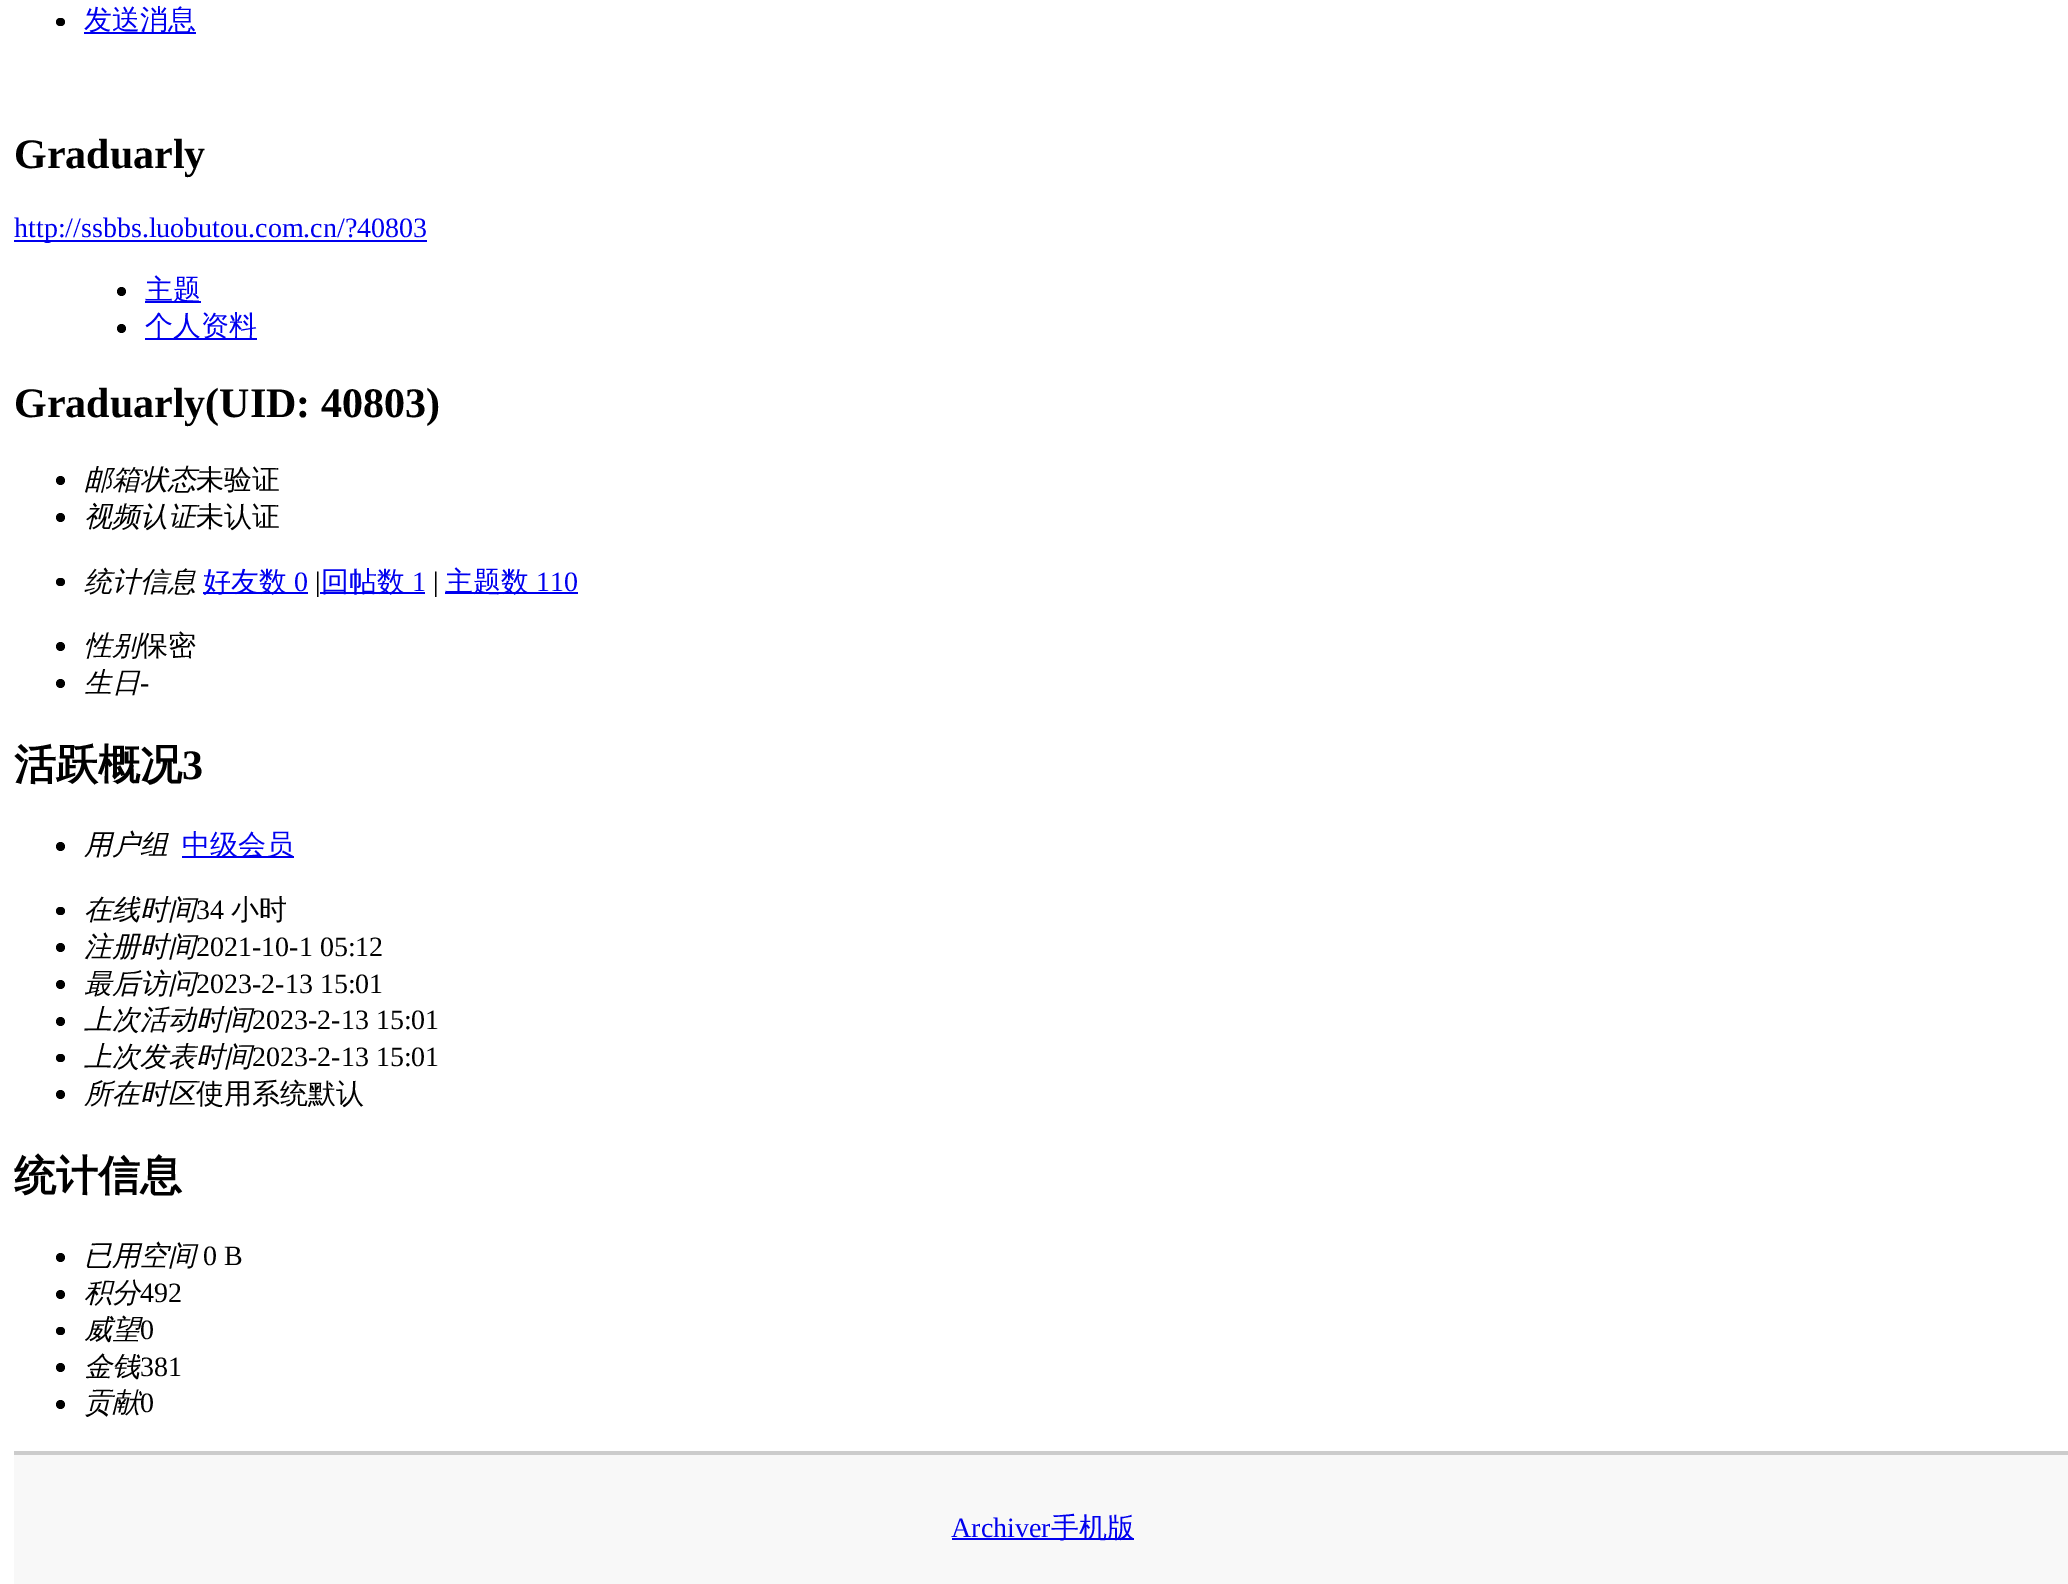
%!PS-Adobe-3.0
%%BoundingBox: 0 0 2068 1584
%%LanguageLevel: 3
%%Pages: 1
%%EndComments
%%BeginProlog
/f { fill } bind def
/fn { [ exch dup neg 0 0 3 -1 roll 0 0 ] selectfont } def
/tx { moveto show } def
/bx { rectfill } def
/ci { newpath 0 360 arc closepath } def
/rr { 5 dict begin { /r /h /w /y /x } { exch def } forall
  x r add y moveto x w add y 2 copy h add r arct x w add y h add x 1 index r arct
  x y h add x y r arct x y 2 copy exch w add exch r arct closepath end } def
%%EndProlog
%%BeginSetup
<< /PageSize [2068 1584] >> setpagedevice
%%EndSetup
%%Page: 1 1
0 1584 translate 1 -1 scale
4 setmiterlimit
1 setgray
0 0 2068 1584 bx
0 setgray
56 18 9 8 4 rr f
0 0 0.933 setrgbcolor
84 32 112 2 bx
/WenQuanYiZenHei-Medium 28 fn
(发送消息) 84 29 tx
/LiberationSerif-Bold 42 fn
0 setgray
(Graduarly) 14 168 tx
0 0 0.933 setrgbcolor
14 240 413 2 bx
/LiberationSerif-Regular 28 fn
(http://ssbbs.luobutou.com.cn/?40803) 14 237 tx
0 setgray
121.5 291.5 4.5 ci f
0 0 0.933 setrgbcolor
145 301 56 2 bx
/WenQuanYiZenHei-Medium 28 fn
(主题) 145 299 tx
0 setgray
121.5 328.5 4.5 ci f
0 0 0.933 setrgbcolor
145 338 112 2 bx
(个人资料) 145 335 tx
/LiberationSerif-Bold 42 fn
0 setgray
(Graduarly\(UID: 40803\)) 14 417 tx
60.5 480.5 4.5 ci f
/WenQuanYiZenHei-MediumItalic 28 fn
(邮箱状态) 84 489 tx
/WenQuanYiZenHei-Medium 28 fn
(未验证) 196 489 tx
60.5 517.5 4.5 ci f
/WenQuanYiZenHei-MediumItalic 28 fn
(视频认证) 84 526 tx
/WenQuanYiZenHei-Medium 28 fn
(未认证) 196 526 tx
56 578 9 8 4 rr f
/WenQuanYiZenHei-MediumItalic 28 fn
(统计信息) 84 591 tx
0 0 0.933 setrgbcolor
203 592 105 2 bx
/WenQuanYiZenHei-Medium 28 fn
(好友数) 203 591 tx
/LiberationSerif-Regular 28 fn
(0) 294 591 tx
0 setgray
(|) 315 591 tx
0 0 0.933 setrgbcolor
320 592 105 2 bx
/WenQuanYiZenHei-Medium 28 fn
(回帖数) 321 591 tx
/LiberationSerif-Regular 28 fn
(1) 412 591 tx
0 setgray
(|) 433 591 tx
0 0 0.933 setrgbcolor
445 592 133 2 bx
/WenQuanYiZenHei-Medium 28 fn
(主题数) 445 591 tx
/LiberationSerif-Regular 28 fn
(110) 536 591 tx
0 setgray
60.5 646.5 4.5 ci f
/WenQuanYiZenHei-MediumItalic 28 fn
(性别) 84 655 tx
/WenQuanYiZenHei-Medium 28 fn
(保密) 140 655 tx
60.5 683.5 4.5 ci f
/WenQuanYiZenHei-MediumItalic 28 fn
(生日) 84 692 tx
/LiberationSerif-Regular 28 fn
(-) 140 692 tx
/WenQuanYiZenHei-Bold 42 fn
(活跃概况) 14 779 tx
/LiberationSerif-Bold 42 fn
(3) 182 779 tx
60.5 846.5 4.5 ci f
/WenQuanYiZenHei-MediumItalic 28 fn
(用户组) 84 854 tx
0 0 0.933 setrgbcolor
182 856 112 2 bx
/WenQuanYiZenHei-Medium 28 fn
(中级会员) 182 854 tx
0 setgray
56 907 9 8 4 rr f
/WenQuanYiZenHei-MediumItalic 28 fn
(在线时间) 84 919 tx
/LiberationSerif-Regular 28 fn
(34) 196 919 tx
/WenQuanYiZenHei-Medium 28 fn
(小时) 231 919 tx
60.5 947.5 4.5 ci f
/WenQuanYiZenHei-MediumItalic 28 fn
(注册时间) 84 956 tx
/LiberationSerif-Regular 28 fn
(2021-10-1 05:12) 196 956 tx
60.5 984.5 4.5 ci f
/WenQuanYiZenHei-MediumItalic 28 fn
(最后访问) 84 993 tx
/LiberationSerif-Regular 28 fn
(2023-2-13 15:01) 196 993 tx
60.5 1021.5 4.5 ci f
/WenQuanYiZenHei-MediumItalic 28 fn
(上次活动时间) 84 1029 tx
/LiberationSerif-Regular 28 fn
(2023-2-13 15:01) 252 1029 tx
56 1054 9 8 4 rr f
/WenQuanYiZenHei-MediumItalic 28 fn
(上次发表时间) 84 1066 tx
/LiberationSerif-Regular 28 fn
(2023-2-13 15:01) 252 1066 tx
60.5 1094.5 4.5 ci f
/WenQuanYiZenHei-MediumItalic 28 fn
(所在时区) 84 1103 tx
/WenQuanYiZenHei-Medium 28 fn
(使用系统默认) 196 1103 tx
/WenQuanYiZenHei-Bold 42 fn
(统计信息) 14 1190 tx
60.5 1257.5 4.5 ci f
/WenQuanYiZenHei-MediumItalic 28 fn
(已用空间) 84 1265 tx
/LiberationSerif-Regular 28 fn
(0 B) 203 1265 tx
60.5 1294.5 4.5 ci f
/WenQuanYiZenHei-MediumItalic 28 fn
(积分) 84 1302 tx
/LiberationSerif-Regular 28 fn
(492) 140 1302 tx
56 1327 9 8 4 rr f
/WenQuanYiZenHei-MediumItalic 28 fn
(威望) 84 1339 tx
/LiberationSerif-Regular 28 fn
(0) 140 1339 tx
60.5 1367.5 4.5 ci f
/WenQuanYiZenHei-MediumItalic 28 fn
(金钱) 84 1376 tx
/LiberationSerif-Regular 28 fn
(381) 140 1376 tx
60.5 1404.5 4.5 ci f
/WenQuanYiZenHei-MediumItalic 28 fn
(贡献) 84 1412 tx
/LiberationSerif-Regular 28 fn
(0) 140 1412 tx
0.973 setgray
14 1455 2054 129 bx
0.8 setgray
14 1451 2054 4 bx
0 0 0.933 setrgbcolor
(Archiver) 951 1537 tx
952 1538 182 2 bx
/WenQuanYiZenHei-Medium 28 fn
(手机版) 1051 1537 tx
showpage
%%EOF
